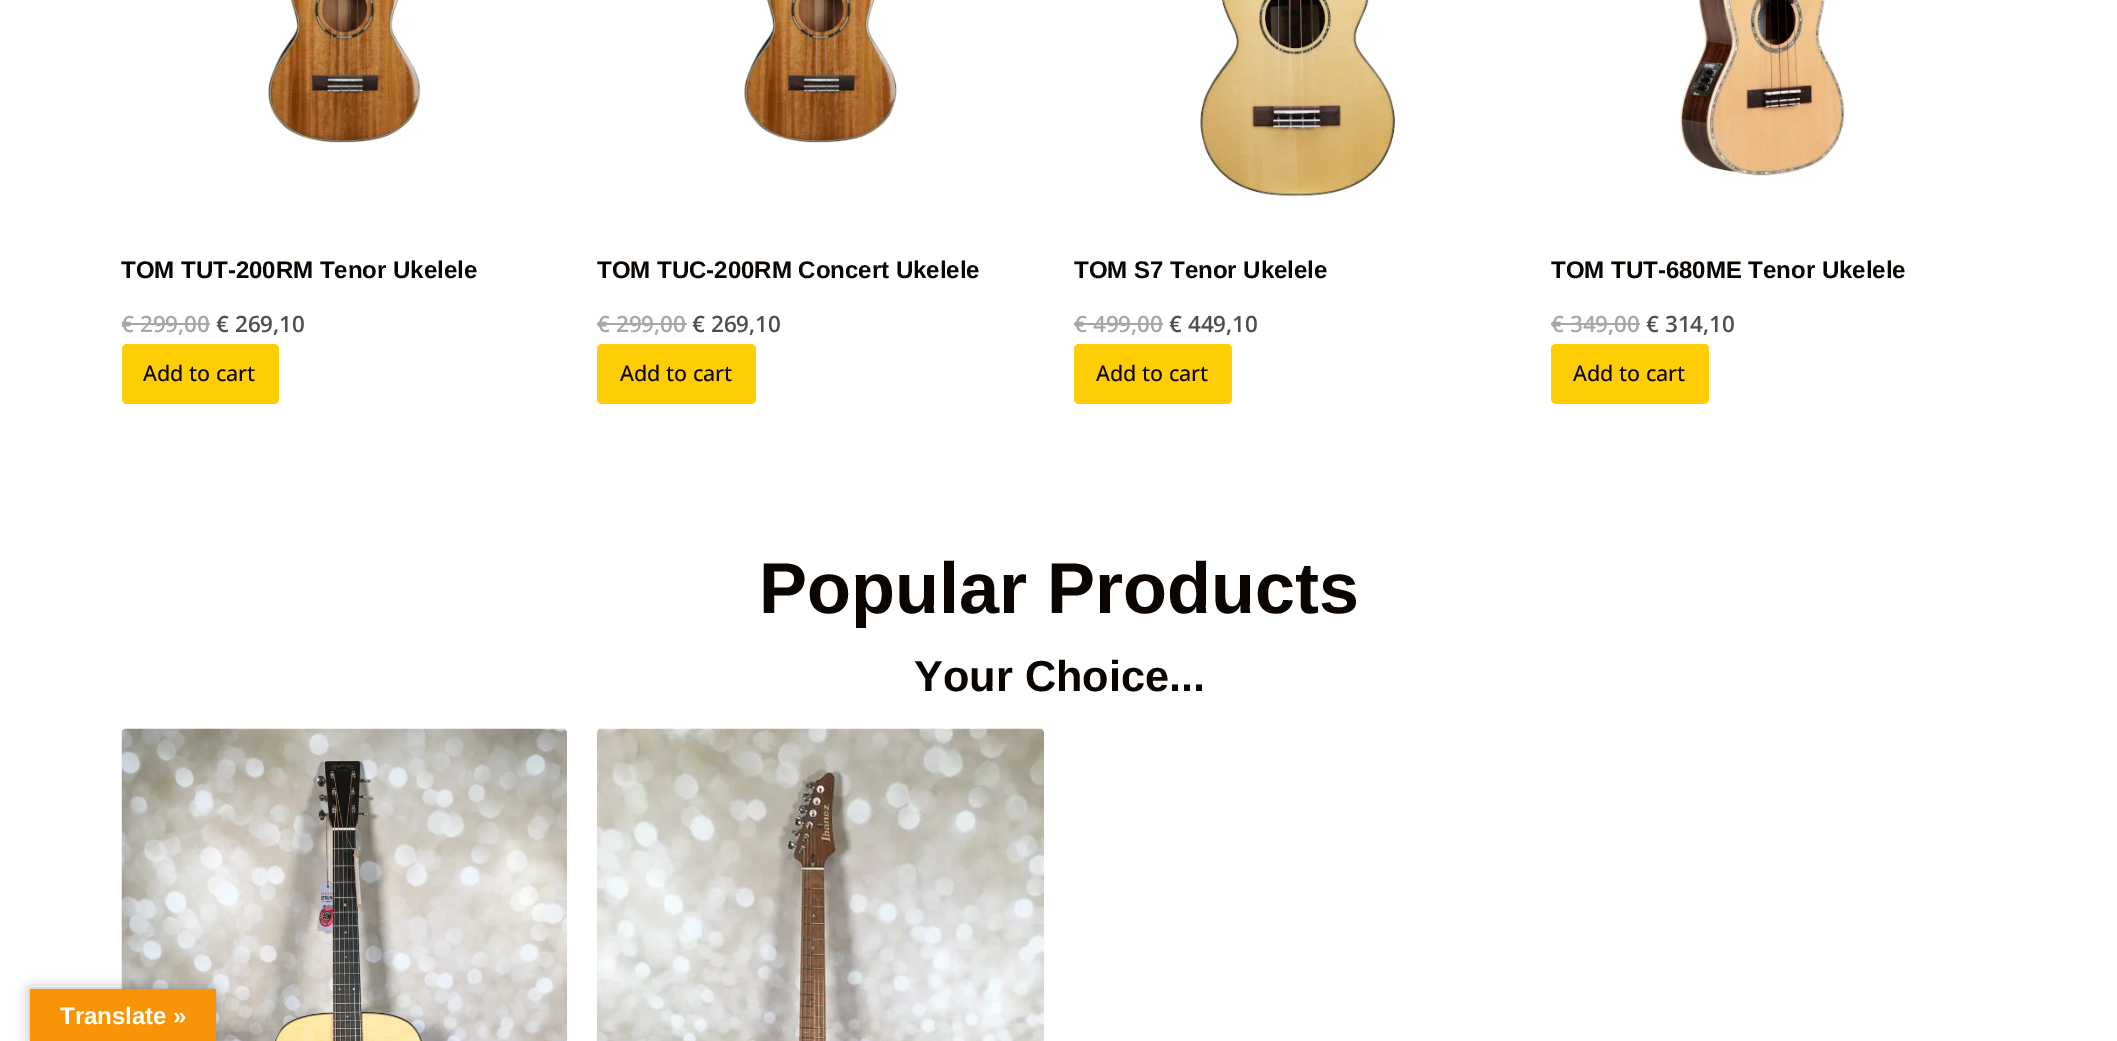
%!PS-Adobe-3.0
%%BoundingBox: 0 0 2117 1041
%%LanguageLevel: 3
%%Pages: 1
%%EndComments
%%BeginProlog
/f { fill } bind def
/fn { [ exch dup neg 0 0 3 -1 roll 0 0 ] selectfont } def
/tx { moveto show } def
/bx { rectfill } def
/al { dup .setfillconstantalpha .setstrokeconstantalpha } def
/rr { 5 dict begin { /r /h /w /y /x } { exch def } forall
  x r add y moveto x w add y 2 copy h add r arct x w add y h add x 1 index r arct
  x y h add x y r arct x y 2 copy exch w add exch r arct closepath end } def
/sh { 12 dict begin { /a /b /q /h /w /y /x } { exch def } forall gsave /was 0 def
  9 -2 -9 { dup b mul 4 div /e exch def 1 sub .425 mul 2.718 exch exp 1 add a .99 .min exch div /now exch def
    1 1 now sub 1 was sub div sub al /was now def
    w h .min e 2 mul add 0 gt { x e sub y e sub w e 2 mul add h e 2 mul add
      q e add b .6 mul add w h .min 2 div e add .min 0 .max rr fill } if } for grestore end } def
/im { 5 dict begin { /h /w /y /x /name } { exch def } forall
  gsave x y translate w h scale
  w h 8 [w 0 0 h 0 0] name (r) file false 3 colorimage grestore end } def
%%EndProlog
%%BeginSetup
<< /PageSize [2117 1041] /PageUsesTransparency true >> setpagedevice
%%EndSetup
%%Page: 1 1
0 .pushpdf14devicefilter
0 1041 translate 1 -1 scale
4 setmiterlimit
1 setgray
0 0 2117 1041 bx
(image0.raw) 268 0 154 143 im
/LiberationSans-Bold 24 fn
0.039 0.02 0 setrgbcolor
(TOM TUT-200RM Tenor Ukelele) 121 278 tx
/OpenSans-SemiBold 22.5 fn
0.659 0.655 0.647 setrgbcolor
(€ 299,00) 121 332 tx
122 323 88 2 bx
0.314 0.306 0.29 setrgbcolor
(€ 269,10) 216 332 tx
1 0.804 0.02 setrgbcolor
122 344 157 60 5 rr f
/OpenSans-Medium 21.5 fn
0.039 0.02 0 setrgbcolor
(Add to cart) 143 381 tx
(image1.raw) 744 0 155 143 im
/LiberationSans-Bold 24 fn
(TOM TUC-200RM Concert Ukelele) 597 278 tx
/OpenSans-SemiBold 22.5 fn
0.659 0.655 0.647 setrgbcolor
(€ 299,00) 597 332 tx
597 323 90 2 bx
0.314 0.306 0.29 setrgbcolor
(€ 269,10) 692 332 tx
1 0.804 0.02 setrgbcolor
597 344 159 60 5 rr f
/OpenSans-Medium 21.5 fn
0.039 0.02 0 setrgbcolor
(Add to cart) 620 381 tx
(image2.raw) 1200 0 196 198 im
/LiberationSans-Bold 24 fn
(TOM S7 Tenor Ukelele) 1074 278 tx
/OpenSans-SemiBold 22.5 fn
0.659 0.655 0.647 setrgbcolor
(€ 499,00) 1074 332 tx
1074 323 89 2 bx
0.314 0.306 0.29 setrgbcolor
(€ 449,10) 1169 332 tx
1 0.804 0.02 setrgbcolor
1074 344 158 60 5 rr f
/OpenSans-Medium 21.5 fn
0.039 0.02 0 setrgbcolor
(Add to cart) 1096 381 tx
(image3.raw) 1679 0 166 177 im
/LiberationSans-Bold 24 fn
(TOM TUT-680ME Tenor Ukelele) 1551 278 tx
/OpenSans-SemiBold 22.5 fn
0.659 0.655 0.647 setrgbcolor
(€ 349,00) 1551 332 tx
1551 323 89 2 bx
0.314 0.306 0.29 setrgbcolor
(€ 314,10) 1646 332 tx
1 0.804 0.02 setrgbcolor
1551 344 158 60 5 rr f
/OpenSans-Medium 21.5 fn
0.039 0.02 0 setrgbcolor
(Add to cart) 1573 381 tx
/LiberationSans-Bold 72 fn
(Popular Products) 759 613 tx
/LiberationSans-Bold 43.25 fn
(Your Choice...) 914 691 tx
(image4.raw) 121 728 446 313 im
(image5.raw) 597 728 447 313 im
0 setgray
30 989 186 52 0 7 0.3 sh
0.973 0.58 0.024 setrgbcolor
30 989 186 52 bx
/LiberationSans-Bold 24 fn
1 setgray
(Translate ») 60 1024 tx
.poppdf14devicefilter showpage
%%EOF
